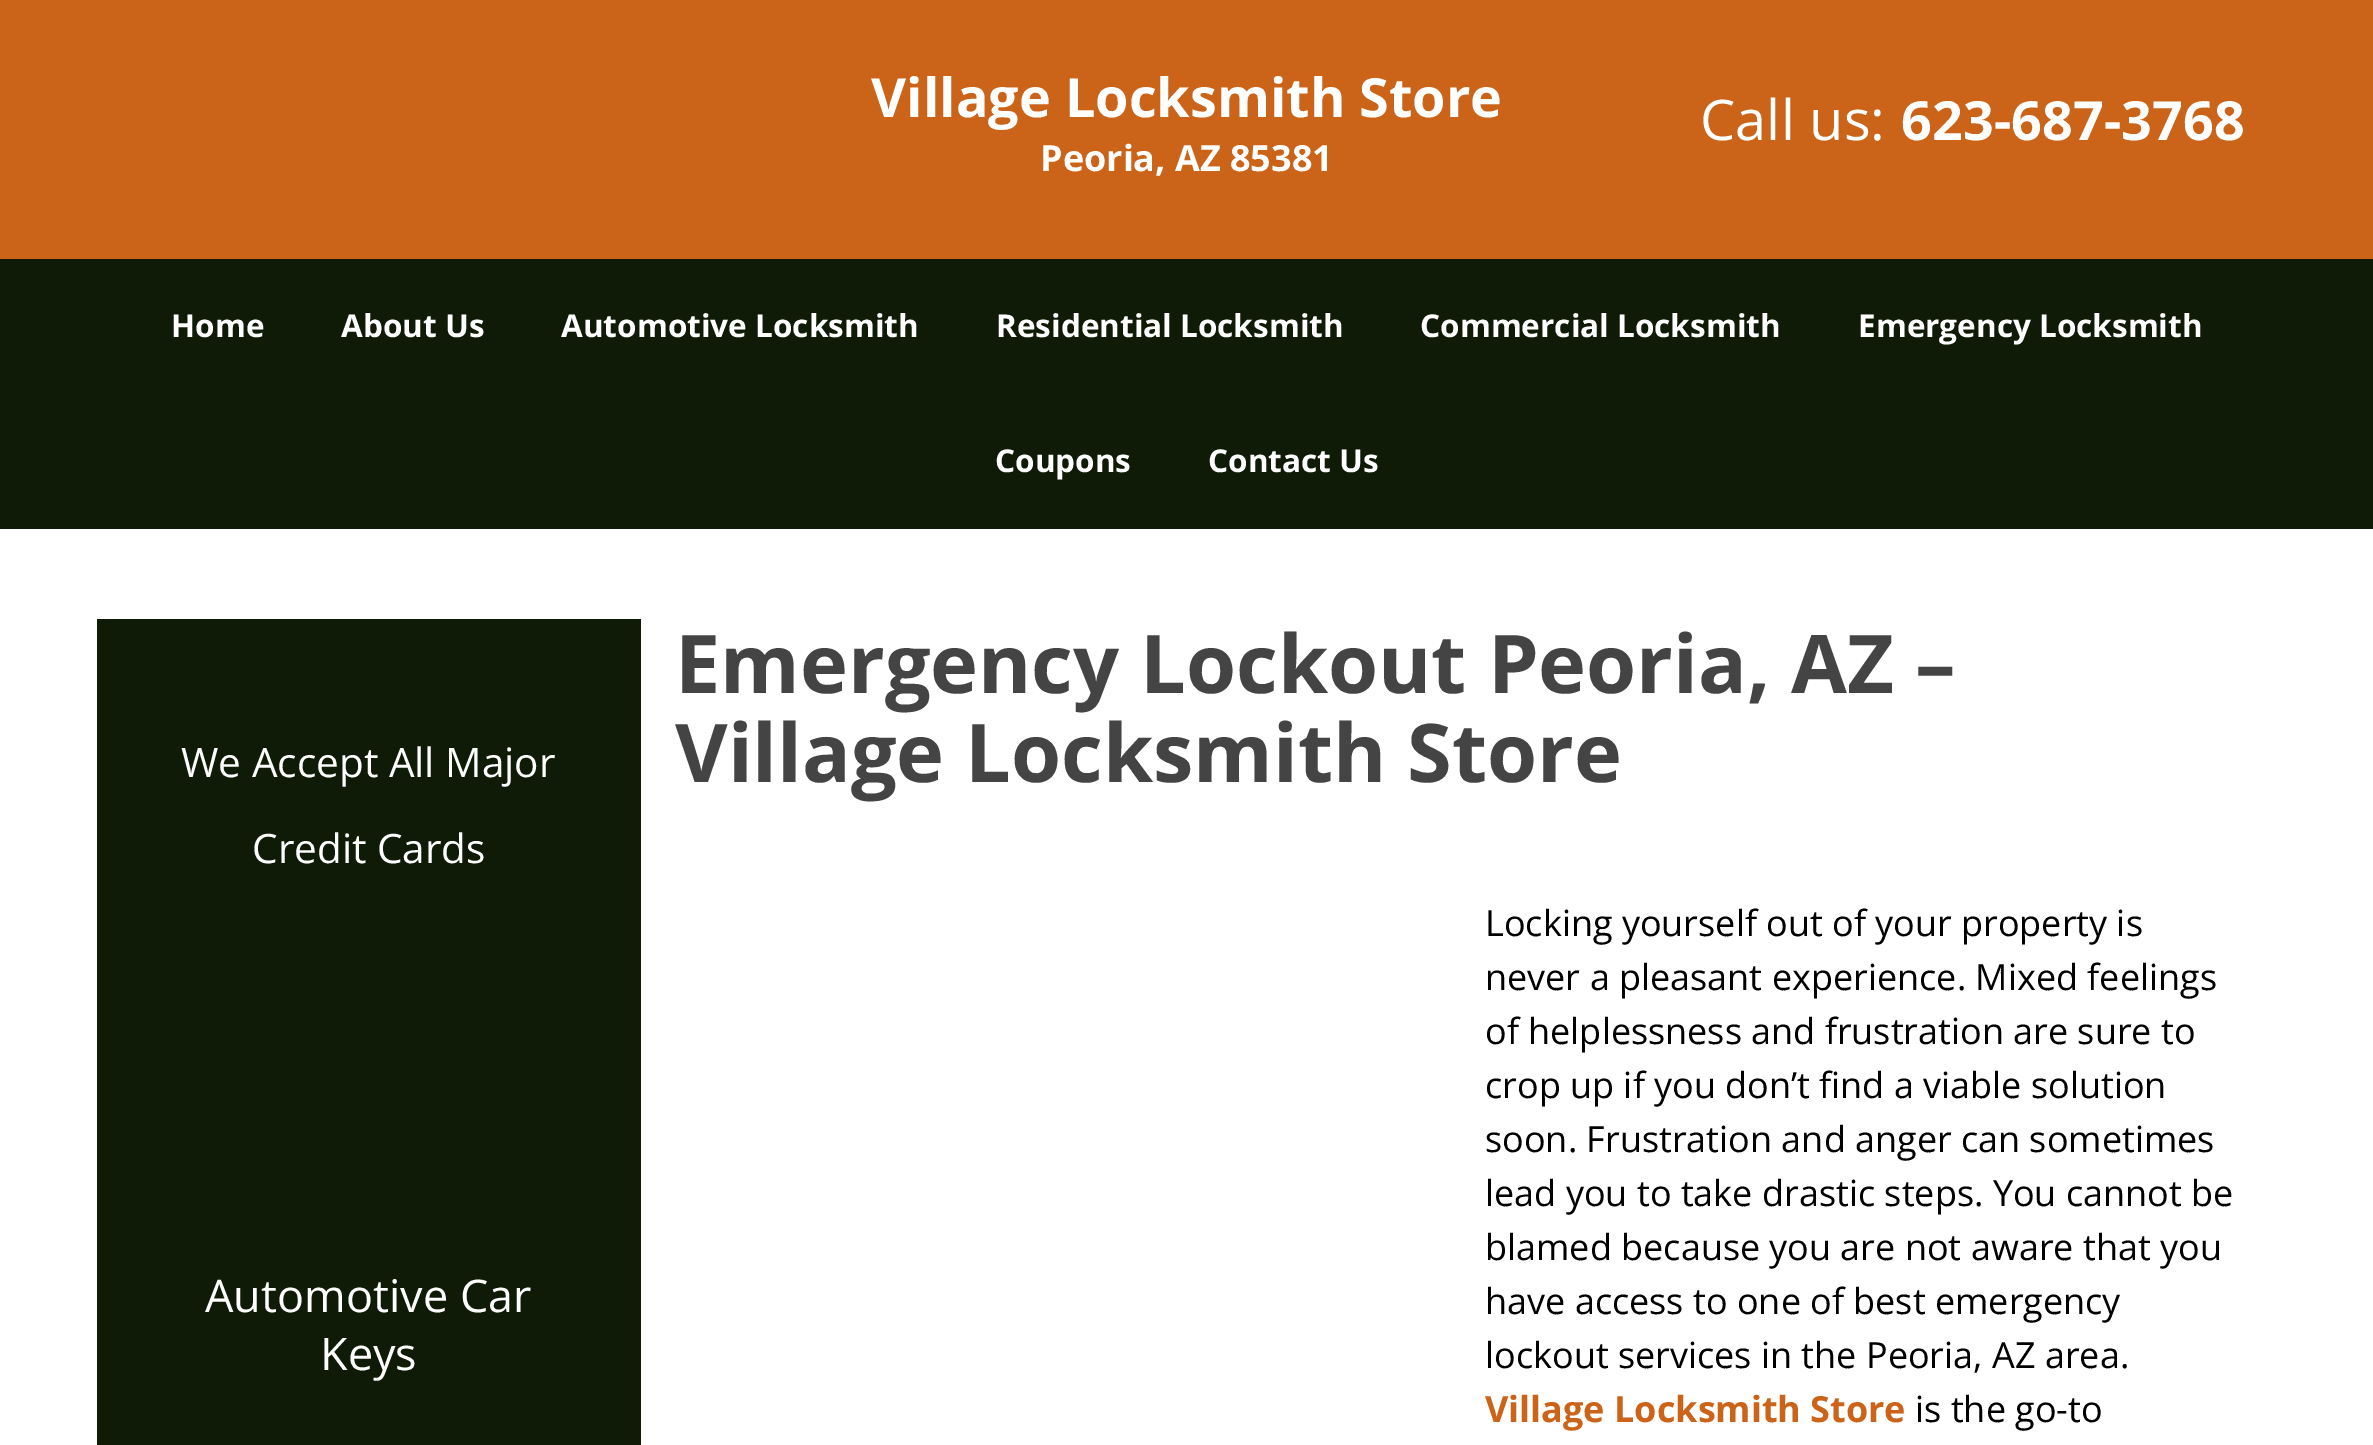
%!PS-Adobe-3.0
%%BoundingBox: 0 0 2373 1445
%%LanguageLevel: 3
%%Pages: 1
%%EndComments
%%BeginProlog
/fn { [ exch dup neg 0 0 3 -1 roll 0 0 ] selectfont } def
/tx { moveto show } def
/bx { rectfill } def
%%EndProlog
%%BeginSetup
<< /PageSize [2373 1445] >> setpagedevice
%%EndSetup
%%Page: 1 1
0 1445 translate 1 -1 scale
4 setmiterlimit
1 setgray
0 0 2373 1445 bx
0.796 0.388 0.094 setrgbcolor
0 0 2373 259 bx
/OpenSans-Bold 54 fn
1 setgray
(Village Locksmith Store) 871 117 tx
/OpenSans-Bold 36 fn
(Peoria, AZ 85381) 1040 171 tx
/OpenSans-Regular 56 fn
(Call us:) 1700 140 tx
/OpenSans-Bold 54 fn
(623-687-3768) 1901 140 tx
0.059 0.106 0.027 setrgbcolor
0 259 2373 270 bx
/OpenSans-Bold 31.5 fn
1 setgray
(Home) 171 337 tx
(About Us) 341 337 tx
(Automotive Locksmith) 561 337 tx
(Residential Locksmith) 996 337 tx
(Commercial Locksmith) 1420 337 tx
(Emergency Locksmith) 1858 337 tx
(Coupons) 995 472 tx
(Contact Us) 1208 472 tx
0.059 0.106 0.027 setrgbcolor
97 619 544 826 bx
/OpenSans-Regular 40.5 fn
1 setgray
(We Accept All Major) 181 777 tx
(Credit Cards) 252 863 tx
/OpenSans-Regular 45 fn
(Automotive Car) 205 1312 tx
(Keys) 320 1370 tx
/OpenSans-Bold 81 fn
0.267 setgray
(Emergency Lockout Peoria, AZ –) 675 693 tx
(Village Locksmith Store) 675 782 tx
/OpenSans-Regular 36 fn
0 setgray
(Locking yourself out of your property is) 1485 936 tx
(never a pleasant experience. Mixed feelings) 1485 990 tx
(of helplessness and frustration are sure to) 1485 1044 tx
(crop up if you don’t find a viable solution) 1485 1098 tx
(soon. Frustration and anger can sometimes) 1485 1152 tx
(lead you to take drastic steps. You cannot be) 1485 1206 tx
(blamed because you are not aware that you) 1485 1260 tx
(have access to one of best emergency) 1485 1314 tx
(lockout services in the Peoria, AZ area.) 1485 1368 tx
/OpenSans-Bold 36 fn
0.796 0.388 0.094 setrgbcolor
(Village Locksmith Store) 1485 1422 tx
/OpenSans-Regular 36 fn
0 setgray
(is the go-to) 1915 1422 tx
showpage
%%EOF
